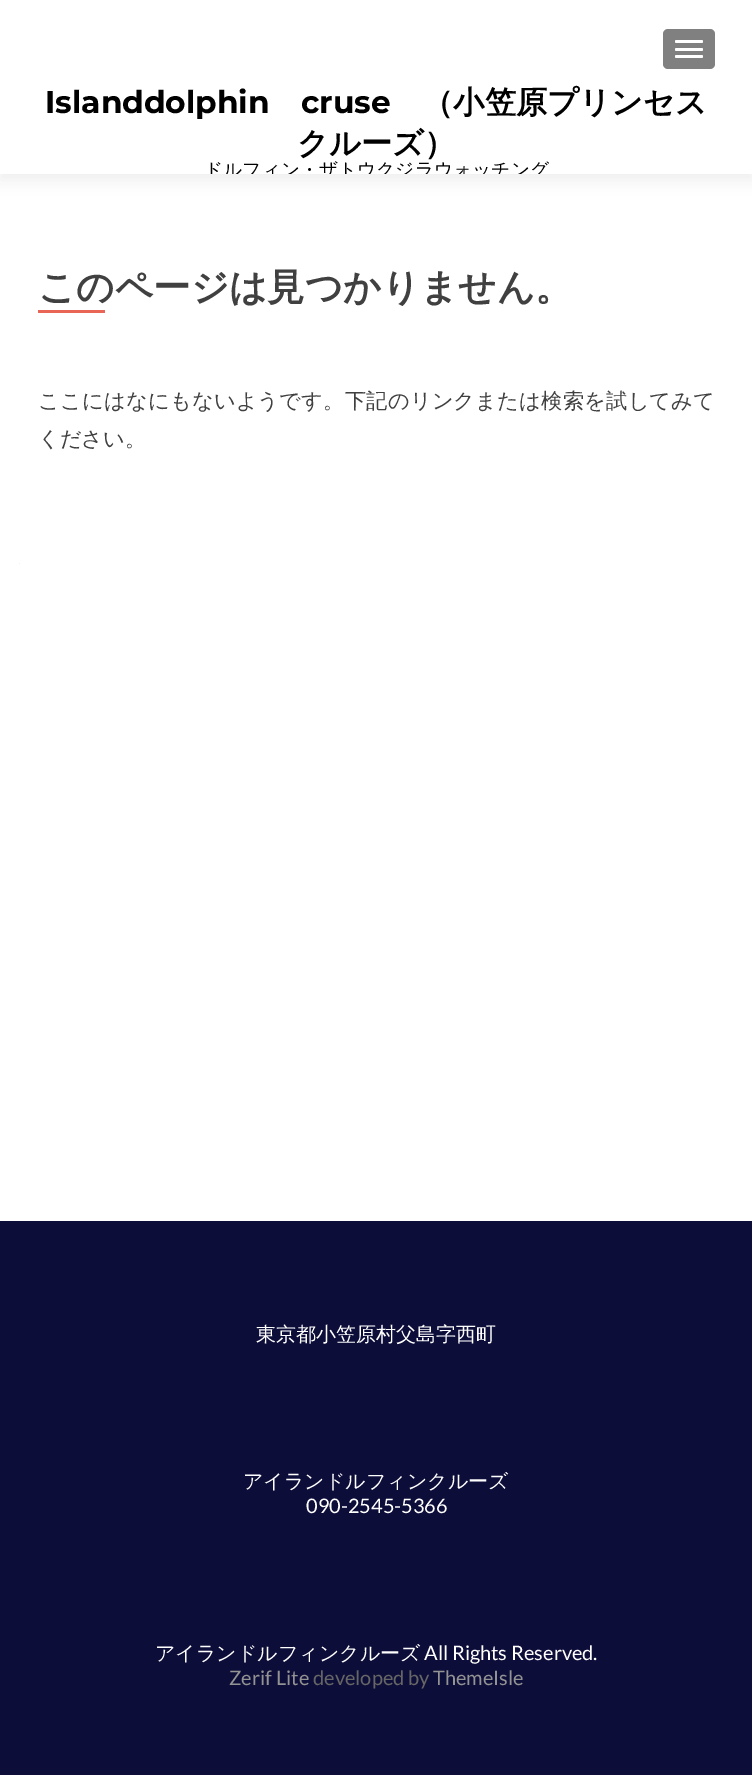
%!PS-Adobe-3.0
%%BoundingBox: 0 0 752 1775
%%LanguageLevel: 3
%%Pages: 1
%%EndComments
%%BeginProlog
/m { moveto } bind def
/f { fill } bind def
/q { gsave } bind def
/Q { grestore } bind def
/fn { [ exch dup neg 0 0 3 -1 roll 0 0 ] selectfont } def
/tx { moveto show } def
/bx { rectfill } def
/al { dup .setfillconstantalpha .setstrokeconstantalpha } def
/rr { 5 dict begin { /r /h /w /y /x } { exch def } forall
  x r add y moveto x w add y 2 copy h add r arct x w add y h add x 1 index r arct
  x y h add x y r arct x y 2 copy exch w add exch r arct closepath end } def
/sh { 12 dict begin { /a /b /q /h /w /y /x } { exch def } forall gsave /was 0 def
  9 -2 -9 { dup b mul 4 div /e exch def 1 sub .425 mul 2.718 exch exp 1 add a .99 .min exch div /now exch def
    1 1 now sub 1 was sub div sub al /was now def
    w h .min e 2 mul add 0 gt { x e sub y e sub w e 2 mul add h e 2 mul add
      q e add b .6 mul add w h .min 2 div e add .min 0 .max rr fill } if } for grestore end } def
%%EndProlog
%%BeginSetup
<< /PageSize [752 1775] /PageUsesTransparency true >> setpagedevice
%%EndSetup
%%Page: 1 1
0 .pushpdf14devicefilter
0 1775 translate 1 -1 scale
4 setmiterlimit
1 setgray
0 0 752 1775 bx
0.196 setgray
0 6 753 174 0 7 0.08 sh
1 setgray
0 0 752 174 bx
0.502 setgray
663 29 52 40 5 rr f
1 setgray
675 40 28 3 1.5 rr f
675 48 28 3 1.5 rr f
675 55 28 3 1.5 rr f
/Montserrat-Bold 31.25 fn
0 setgray
(Islanddolphin) 45 113 tx
(cruse) 301 113 tx
/WenQuanYiZenHei-Bold 31.25 fn
(（小笠原プリンセス) 422 113 tx
(クルーズ）) 297 154 tx
q
0 0 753 174 rectclip
/WenQuanYiZenHei-Medium 18.75 fn
(ドルフィン・ザトウクジラウォッチング) 204 176 tx
Q
/WenQuanYiZenHei-Bold 37.5 fn
0.251 setgray
(このページは見つかりません。) 38 300 tx
0.914 0.4 0.337 setrgbcolor
38 310 67 3 bx
/WenQuanYiZenHei-Medium 21.25 fn
0.251 setgray
38 408 m 0.2 0 (ここにはなにもないようです。下記のリンクまたは検索を試してみて) ashow
(ください。) 38 446 tx
0.949 setgray
19 563 1 1 bx
0.051 0.051 0.224 setrgbcolor
0 1221 752 554 bx
/WenQuanYiZenHei-Medium 20 fn
1 setgray
(東京都小笠原村父島字西町) 256 1341 tx
(アイランドルフィンクルーズ) 243 1488 tx
/Lato-Regular 20 fn
(090-2545-5366) 306 1513 tx
/WenQuanYiZenHei-Medium 20 fn
(アイランドルフィンクルーズ) 155 1660 tx
/Lato-Regular 20 fn
(All Rights Reserved.) 424 1660 tx
0.576 setgray
(Zerif Lite) 229 1685 tx
0.4 setgray
(developed by) 313 1685 tx
0.576 setgray
(ThemeIsle) 433 1685 tx
.poppdf14devicefilter showpage
%%EOF
